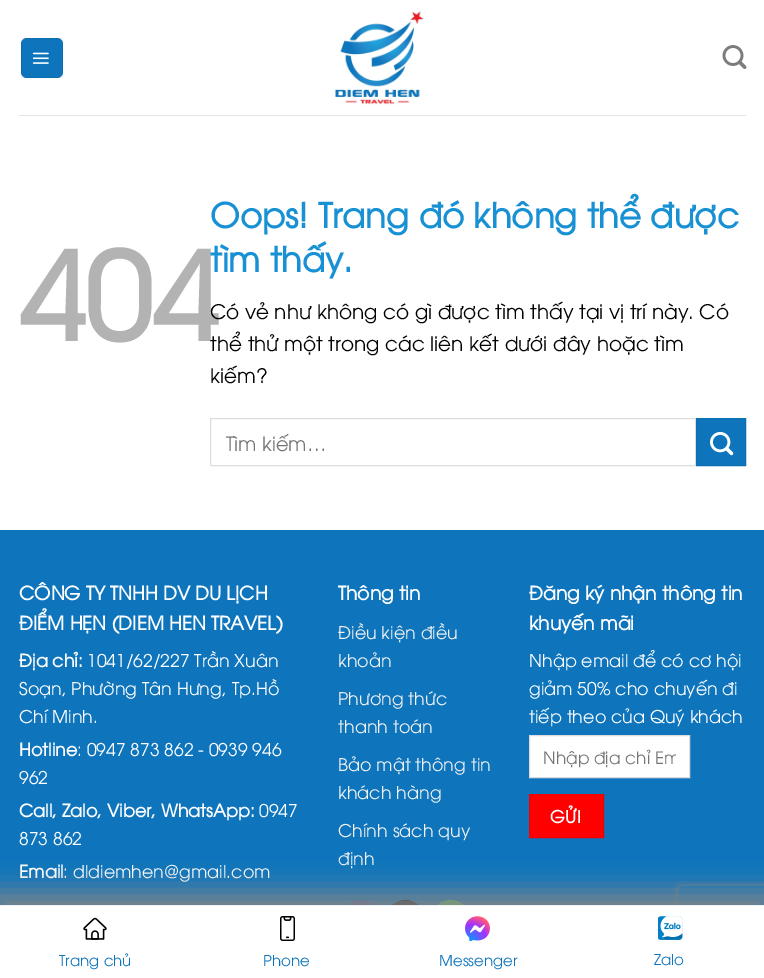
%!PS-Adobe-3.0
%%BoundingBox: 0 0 764 978
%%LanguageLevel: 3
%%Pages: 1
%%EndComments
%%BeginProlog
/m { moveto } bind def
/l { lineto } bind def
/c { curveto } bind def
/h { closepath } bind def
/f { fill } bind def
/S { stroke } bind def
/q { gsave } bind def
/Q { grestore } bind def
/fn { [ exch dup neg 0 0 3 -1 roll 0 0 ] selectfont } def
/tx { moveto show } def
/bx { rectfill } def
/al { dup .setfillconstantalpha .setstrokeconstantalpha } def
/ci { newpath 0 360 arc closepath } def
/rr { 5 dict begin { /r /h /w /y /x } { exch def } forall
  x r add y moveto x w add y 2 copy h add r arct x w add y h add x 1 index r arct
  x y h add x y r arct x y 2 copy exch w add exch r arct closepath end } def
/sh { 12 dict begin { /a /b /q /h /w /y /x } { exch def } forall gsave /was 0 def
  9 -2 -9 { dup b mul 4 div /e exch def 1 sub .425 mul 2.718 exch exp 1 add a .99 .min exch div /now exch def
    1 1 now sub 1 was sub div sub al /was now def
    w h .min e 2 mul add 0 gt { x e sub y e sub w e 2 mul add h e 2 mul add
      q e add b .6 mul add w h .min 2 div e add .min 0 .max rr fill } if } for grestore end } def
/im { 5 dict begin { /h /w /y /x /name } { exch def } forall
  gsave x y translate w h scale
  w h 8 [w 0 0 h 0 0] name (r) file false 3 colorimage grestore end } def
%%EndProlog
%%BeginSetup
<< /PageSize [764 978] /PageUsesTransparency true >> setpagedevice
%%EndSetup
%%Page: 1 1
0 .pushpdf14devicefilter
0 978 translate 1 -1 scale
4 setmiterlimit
1 setgray
0 0 764 978 bx
0.055 0.459 0.737 setrgbcolor
21 38 42 40 6 rr f
0.05 al
0 setgray
21.5 38.5 41 39 rectstroke
1 al
(image0.raw) 32 52 17 12 im
(image1.raw) 334 11 90 94 im
(image2.raw) 722 45 25 24 im
0.902 setgray
19 115 727 1 bx
/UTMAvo-Bold 120 fn
0.702 setgray
(404) 19 341 tx
/UTMAvo-Bold 34 fn
0.09 0.569 0.827 setrgbcolor
(Oops! Trang đó không thể được) 210 228 tx
(tìm thấy.) 210 272 tx
/UTMAvo-Regular 20 fn
0 setgray
(Có vẻ như không có gì được tìm thấy tại vị trí này. Có) 210 319 tx
(thể thử một trong các liên kết dưới đây hoặc tìm) 210 351 tx
(kiếm?) 210 383 tx
0.867 setgray
210.5 418.5 485 47 rectstroke
/UTMAvo-Regular 19.5 fn
0.459 setgray
(Tìm kiếm…) 226 451 tx
0.055 0.459 0.737 setrgbcolor
696.5 418.5 m 745.5 418.5 l 745.5 465.5 l 696.5 465.5 l h q f Q
0.051 0.435 0.702 setrgbcolor
S
(image3.raw) 710 431 24 25 im
0.055 0.459 0.737 setrgbcolor
0 530 764 375 bx
/UTMAvo-Bold 18.75 fn
1 setgray
(CÔNG TY TNHH DV DU LỊCH) 19 600 tx
(ĐIỂM HẸN \(DIEM HEN TRAVEL\)) 19 630 tx
/UTMAvo-Bold 17.5 fn
(Địa chỉ:) 19 667 tx
/UTMAvo-Regular 17.5 fn
(1041/62/227 Trần Xuân) 87 667 tx
(Soạn, Phường Tân Hưng, Tp.Hồ) 19 695 tx
(Chí Minh.) 19 723 tx
/UTMAvo-Bold 17.5 fn
(Hotline) 19 756 tx
/UTMAvo-Regular 17.5 fn
(: 0947 873 862 - 0939 946) 77 756 tx
(962) 19 784 tx
/UTMAvo-Bold 17.5 fn
(Call, Zalo, Viber, WhatsApp:) 19 817 tx
/UTMAvo-Regular 17.5 fn
(0947) 259 817 tx
(873 862) 19 845 tx
/UTMAvo-Bold 17.5 fn
(Email) 19 878 tx
/UTMAvo-Regular 17.5 fn
(: dldiemhen@gmail.com) 63 878 tx
/UTMAvo-Bold 18.75 fn
(Thông tin) 338 600 tx
/UTMAvo-Regular 17.5 fn
0.945 setgray
(Điều kiện điều) 338 639 tx
(khoản) 338 667 tx
(Phương thức) 338 705 tx
(thanh toán) 338 733 tx
(Bảo mật thông tin) 338 771 tx
(khách hàng) 338 799 tx
(Chính sách quy) 338 837 tx
(định) 338 865 tx
0.227 0.345 0.616 setrgbcolor
360.5 920.5 20 ci q f Q
S
0.067 setgray
405.5 920.5 20 ci q f Q
S
0.318 0.796 0.353 setrgbcolor
450.5 920.5 20 ci q f Q
S
/UTMAvo-Bold 18.75 fn
1 setgray
(Đăng ký nhận thông tin) 529 600 tx
(khuyến mãi) 529 630 tx
/UTMAvo-Regular 17.5 fn
(Nhập email để có cơ hội) 529 667 tx
(giảm 50% cho chuyến đi) 529 695 tx
(tiếp theo của Quý khách) 529 723 tx
529.5 735.5 m 689.5 735.5 l 689.5 777.5 l 529.5 777.5 l h q f Q
0.867 setgray
S
q
543 744 133 24 rectclip
/UTMAvo-Regular 17 fn
0.459 setgray
(Nhập địa chỉ Em) 543 764 tx
Q
1 0 0 setrgbcolor
529.5 794.5 m 603.5 794.5 l 603.5 837.5 l 529.5 837.5 l h q f Q
0.949 0 0 setrgbcolor
S
/UTMAvo-Bold 17 fn
1 setgray
550 823 m 0.5 0 (GỬI) ashow
0.522 setgray
-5 891 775 84 0 13 0.91 sh
q
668 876 m 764 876 l 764 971 l 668 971 l h 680.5 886 m 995.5 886 l 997 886 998 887 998 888.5 c 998 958.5 l 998 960 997 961 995.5 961 c 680.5 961 l 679 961 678 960 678 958.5 c 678 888.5 l 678 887 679 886 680.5 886 c h eoclip newpath
0.502 setgray
678 886 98 75 2.5 3 1 sh
Q
1 setgray
0 906 764 72 bx
0.945 setgray
0 905 764 1 bx
(image4.raw) 83 917 24 23 im
/UTMAvo-Regular 15 fn
0.055 0.459 0.737 setrgbcolor
(Trang chủ) 59 966 tx
(image5.raw) 280 916 15 25 im
(Phone) 263 966 tx
(image6.raw) 465 916 25 25 im
(Messenger) 439 966 tx
(image7.raw) 658 916 25 24 im
(Zalo) 654 965 tx
.poppdf14devicefilter showpage
%%EOF
